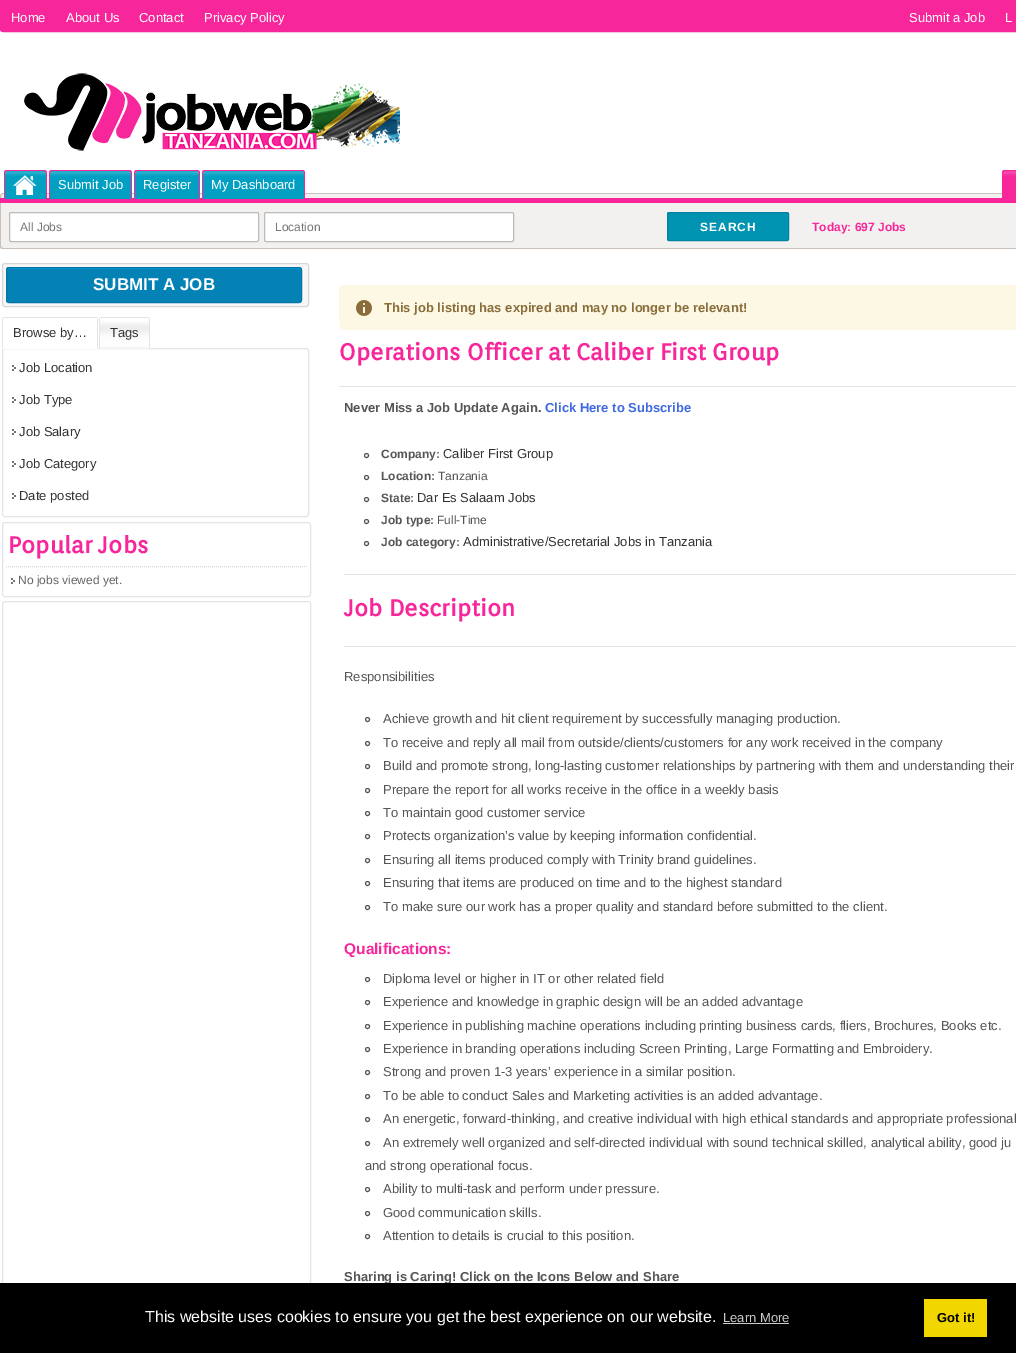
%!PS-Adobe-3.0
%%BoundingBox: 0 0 1016 1353
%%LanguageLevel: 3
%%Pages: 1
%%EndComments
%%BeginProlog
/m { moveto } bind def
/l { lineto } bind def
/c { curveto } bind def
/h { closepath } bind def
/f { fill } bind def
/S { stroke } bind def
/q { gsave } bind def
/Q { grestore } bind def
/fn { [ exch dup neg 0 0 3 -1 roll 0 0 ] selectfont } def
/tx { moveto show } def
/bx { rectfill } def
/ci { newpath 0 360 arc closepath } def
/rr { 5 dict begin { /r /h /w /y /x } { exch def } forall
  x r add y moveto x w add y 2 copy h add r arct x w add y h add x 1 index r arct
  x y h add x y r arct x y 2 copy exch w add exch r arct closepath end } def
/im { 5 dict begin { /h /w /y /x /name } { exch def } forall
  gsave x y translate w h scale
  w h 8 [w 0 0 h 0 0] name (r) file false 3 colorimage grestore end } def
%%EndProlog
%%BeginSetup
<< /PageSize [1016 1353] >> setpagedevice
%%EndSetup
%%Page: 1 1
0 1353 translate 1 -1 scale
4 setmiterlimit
1 setgray
0 0 1016 1353 bx
0.973 0.149 0.608 setrgbcolor
0.5 0.5 m 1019.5 0.5 l 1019.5 29 l 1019.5 30.5 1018.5 31.5 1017 31.5 c 3 31.5 l 1.5 31.5 0.5 30.5 0.5 29 c h q f Q
S
/LiberationSans-Regular 13 fn
1 setgray
(Home) 11 22 tx
(About Us) 66 22 tx
(Contact) 139 22 tx
(Privacy Policy) 204 22 tx
(Submit a Job) 909 22 tx
(L) 1005 22 tx
(image0.raw) 24 73 376 78 im
0.973 0.149 0.608 setrgbcolor
0 198 1016 5 bx
0.949 0.945 0.937 setrgbcolor
3 193 m 1016 193 l 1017.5 193 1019 194.5 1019 196 c 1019 198 l 0 198 l 0 196 l 0 194.5 1.5 193 3 193 c h f
0.792 0.761 0.729 setrgbcolor
3 193 m 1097 193 l 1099 194 l 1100 195 l 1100 198 l 0 198 l 0 196 0 193 3 193 c h 3 194 m 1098 194 l 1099 195 l 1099 198 l 1 198 l 1 196 1 194 3 194 c h eofill
0.004 0.624 0.761 setrgbcolor
7 171 m 44 171 l 45 171 46 172 46 173 c 46 199 l 5 199 l 5 173 l 5 172 6 171 7 171 c h f
(image1.raw) 5 171 41 5 im
q
3 169 836 30 rectclip
0.973 0.149 0.608 setrgbcolor
7 170 m 44 170 l 46 170 47 171 47 173 c 47 203 l 4 203 l 4 173 l 4 171 5 170 7 170 c h 7 171 m 44 171 l 45 171 46 172 46 173 c 46 203 l 5 203 l 5 173 l 5 172 6 171 7 171 c h eofill
Q
(image2.raw) 13 175 24 20 im
52 171 m 129 171 l 130 171 131 172 131 173 c 131 199 l 50 199 l 50 173 l 50 172 51 171 52 171 c h f
(image3.raw) 50 171 81 5 im
q
3 169 836 30 rectclip
0.973 0.149 0.608 setrgbcolor
52 170 m 129 170 l 131 170 132 171 132 173 c 132 203 l 49 203 l 49 173 l 49 171 50 170 52 170 c h 52 171 m 129 171 l 130 171 131 172 131 173 c 131 203 l 50 203 l 50 173 l 50 172 51 171 52 171 c h eofill
Q
1 setgray
(Submit Job) 58 189 tx
0.004 0.624 0.761 setrgbcolor
137 171 m 197 171 l 198 171 199 172 199 173 c 199 199 l 135 199 l 135 173 l 135 172 136 171 137 171 c h f
(image4.raw) 135 171 64 5 im
q
3 169 836 30 rectclip
0.973 0.149 0.608 setrgbcolor
137 170 m 197 170 l 199 170 200 171 200 173 c 200 203 l 134 203 l 134 173 l 134 171 135 170 137 170 c h 137 171 m 197 171 l 198 171 199 172 199 173 c 199 203 l 135 203 l 135 173 l 135 172 136 171 137 171 c h eofill
Q
1 setgray
(Register) 143 189 tx
0.004 0.624 0.761 setrgbcolor
205 171 m 302 171 l 303 171 304 172 304 173 c 304 199 l 203 199 l 203 173 l 203 172 204 171 205 171 c h f
(image5.raw) 203 171 101 5 im
q
3 169 836 30 rectclip
0.973 0.149 0.608 setrgbcolor
205 170 m 302 170 l 304 170 305 171 305 173 c 305 203 l 202 203 l 202 173 l 202 171 203 170 205 170 c h 205 171 m 302 171 l 303 171 304 172 304 173 c 304 203 l 203 203 l 203 173 l 203 172 204 171 205 171 c h eofill
Q
1 setgray
(My Dashboard) 211 189 tx
0.973 0.149 0.608 setrgbcolor
1005 170 m 1016 170 l 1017.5 170 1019 171.5 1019 173 c 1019 199 l 1002 199 l 1002 173 l 1002 171.5 1003.5 170 1005 170 c h f
(image6.raw) 1002 171 14 5 im
q
866 169 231 30 rectclip
1005 170 m 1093 170 l 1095 170 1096 171 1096 173 c 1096 203 l 1002 203 l 1002 173 l 1002 171 1003 170 1005 170 c h 1005 171 m 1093 171 l 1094 171 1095 172 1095 173 c 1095 203 l 1003 203 l 1003 173 l 1003 172 1004 171 1005 171 c h eofill
Q
0.949 0.945 0.937 setrgbcolor
0 203 m 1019 203 l 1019 246 l 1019 247.5 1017.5 249 1016 249 c 3 249 l 1.5 249 0 247.5 0 246 c h f
0.792 0.761 0.729 setrgbcolor
0 203 m 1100 203 l 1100 246 l 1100 248 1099 249 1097 249 c 3 249 l 1 249 0 248 0 246 c h 1 203 m 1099 203 l 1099 246 l 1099 247 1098 248 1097 248 c 3 248 l 2 248 1 247 1 246 c h eofill
1 setgray
9.5 212.5 249 29 1.5 rr q f Q
0.733 setgray
S
/LiberationSans-Regular 12 fn
0.459 setgray
(All Jobs) 20 231 tx
1 setgray
264.5 212.5 249 29 1.5 rr q f Q
0.733 setgray
S
0.459 setgray
(Location) 275 231 tx
0.004 0.576 0.698 setrgbcolor
667.5 212.5 121 28 1.5 rr q f Q
0.004 0.51 0.62 setrgbcolor
S
/LiberationSans-Bold 12 fn
1 setgray
700 231 m 1 0 (SEARCH) ashow
0.973 0.149 0.608 setrgbcolor
(Today: 697 Jobs) 812 231 tx
0.973 0.965 0.965 setrgbcolor
2.5 263.5 306 43 2.5 rr q f Q
0.843 0.835 0.835 setrgbcolor
S
0.016 0.51 0.714 setrgbcolor
6 267 296 36 3 rr f
0.012 0.612 0.859 setrgbcolor
9 269 m 299 269 l 300 269 301 270 301 271 c 301 270 301 268 299 268 c 8 268 l 7 271 l 7 270 8 269 9 269 c h f
0.008 0.463 0.655 setrgbcolor
6.5 267.5 295 35 2.5 rr S
/LiberationSans-Bold 17 fn
1 setgray
(SUBMIT A JOB) 93 290 tx
0.894 0.894 0.906 setrgbcolor
2.5 348.5 306 168 2.5 rr S
1 setgray
2 317 96 32 2 rr f
0.894 0.894 0.906 setrgbcolor
3 317 94 1 bx
97 318 1 30 bx
2 318 1 30 bx
/LiberationSans-Regular 13 fn
0.2 setgray
(Browse by…) 13 337 tx
0.961 0.961 0.949 setrgbcolor
99 317 51 32 2 rr f
(image7.raw) 100 318 49 29 im
0.894 0.894 0.906 setrgbcolor
100 317 49 1 bx
149 318 1 30 bx
99 318 1 30 bx
0.2 setgray
(Tags) 110 337 tx
(image8.raw) 12 365 4 6 im
(Job Location) 19 372 tx
(image8.raw) 12 397 4 6 im
(Job Type) 19 404 tx
(image8.raw) 12 429 4 6 im
(Job Salary) 19 436 tx
(image8.raw) 12 461 4 6 im
(Job Category) 19 468 tx
(image8.raw) 12 493 4 6 im
(Date posted) 19 500 tx
0.894 0.894 0.906 setrgbcolor
2.5 522.5 308 74 2.5 rr S
/Orienta-Bold 23 fn
0.973 0.149 0.608 setrgbcolor
(Popular Jobs) 8 553 tx
(image8.raw) 11 578 4 6 im
0.847 setgray
[1 1] 0 setdash
6 566.5 m 307 566.5 l S
/LiberationSans-Regular 12 fn
0.4 setgray
(No jobs viewed yet.) 18 584 tx
0.894 0.894 0.906 setrgbcolor
[] 0 setdash
2.5 601.5 308 684 2.5 rr S
0.988 0.973 0.89 setrgbcolor
339 285 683 45 6 rr f
(image9.raw) 356 300 16 16 im
/LiberationSans-Bold 13 fn
0.541 0.427 0.231 setrgbcolor
(This job listing has expired and may no longer be relevant!) 384 312 tx
0.894 setgray
339 386 677 1 bx
/Orienta-Bold 23 fn
0.973 0.149 0.608 setrgbcolor
(Operations Officer at Caliber First Group) 339 360 tx
/LiberationSans-Bold 13 fn
0.333 setgray
(Never Miss a Job Update Again.) 344 412 tx
0.255 0.412 0.882 setrgbcolor
(Click Here to Subscribe) 545 412 tx
0.333 setgray
366.5 455.5 2 ci S
/LiberationSans-Bold 12 fn
(Company:) 381 458 tx
/LiberationSans-Regular 13 fn
0.2 setgray
(Caliber First Group) 443 458 tx
0.333 setgray
366.5 477.5 2 ci S
/LiberationSans-Bold 12 fn
(Location:) 381 480 tx
/LiberationSans-Regular 12 fn
(Tanzania) 438 480 tx
366.5 499.5 2 ci S
/LiberationSans-Bold 12 fn
(State:) 381 502 tx
/LiberationSans-Regular 13 fn
0.2 setgray
(Dar Es Salaam Jobs) 417 502 tx
0.333 setgray
366.5 521.5 2 ci S
/LiberationSans-Bold 12 fn
(Job type:) 381 524 tx
/LiberationSans-Regular 12 fn
(Full-Time) 437 524 tx
366.5 543.5 2 ci S
/LiberationSans-Bold 12 fn
(Job category:) 381 546 tx
/LiberationSans-Regular 13 fn
0.2 setgray
(Administrative/Secretarial Jobs in Tanzania) 463 546 tx
0.89 setgray
344 574 672 1 bx
/Orienta-Bold 23 fn
0.973 0.149 0.608 setrgbcolor
(Job Description) 344 616 tx
0.89 setgray
344 646 672 1 bx
/LiberationSans-Regular 13 fn
0.333 setgray
(Responsibilities) 344 681 tx
367.5 719.5 2 ci S
(Achieve growth and hit client requirement by successfully managing production.) 383 723 tx
367.5 743.5 2 ci S
(To receive and reply all mail from outside/clients/customers for any work received in the company) 383 747 tx
367.5 766.5 2 ci S
(Build and promote strong, long-lasting customer relationships by partnering with them and understanding their) 383 770 tx
367.5 790.5 2 ci S
(Prepare the report for all works receive in the office in a weekly basis) 383 794 tx
367.5 813.5 2 ci S
(To maintain good customer service) 383 817 tx
367.5 836.5 2 ci S
(Protects organization’s value by keeping information confidential.) 383 840 tx
367.5 860.5 2 ci S
(Ensuring all items produced comply with Trinity brand guidelines.) 383 864 tx
367.5 883.5 2 ci S
(Ensuring that items are produced on time and to the highest standard) 383 887 tx
367.5 907.5 2 ci S
(To make sure our work has a proper quality and standard before submitted to the client.) 383 911 tx
/LiberationSans-Bold 15.5 fn
0.973 0.149 0.608 setrgbcolor
(Qualifications:) 344 954 tx
0.333 setgray
367.5 979.5 2 ci S
/LiberationSans-Regular 13 fn
(Diploma level or higher in IT or other related field) 383 983 tx
367.5 1002.5 2 ci S
(Experience and knowledge in graphic design will be an added advantage) 383 1006 tx
367.5 1026.5 2 ci S
(Experience in publishing machine operations including printing business cards, fliers, Brochures, Books etc.) 383 1030 tx
367.5 1049.5 2 ci S
(Experience in branding operations including Screen Printing, Large Formatting and Embroidery.) 383 1053 tx
367.5 1072.5 2 ci S
(Strong and proven 1-3 years’ experience in a similar position.) 383 1076 tx
367.5 1096.5 2 ci S
(To be able to conduct Sales and Marketing activities is an added advantage.) 383 1100 tx
367.5 1119.5 2 ci S
(An energetic, forward-thinking, and creative individual with high ethical standards and appropriate professional) 383 1123 tx
367.5 1143.5 2 ci S
(An extremely well organized and self-directed individual with sound technical skilled, analytical ability, good ju) 383 1147 tx
(and strong operational focus.) 365 1170 tx
367.5 1189.5 2 ci S
(Ability to multi-task and perform under pressure.) 383 1193 tx
367.5 1213.5 2 ci S
(Good communication skills.) 383 1217 tx
367.5 1236.5 2 ci S
(Attention to details is crucial to this position.) 383 1240 tx
/LiberationSans-Bold 13 fn
(Sharing is Caring! Click on the Icons Below and Share) 344 1281 tx
0 setgray
0 1283 1016 70 bx
/LiberationSans-Regular 16 fn
1 setgray
(This website uses cookies to ensure you get the best experience on our website.) 145 1322 tx
/LiberationSans-Regular 13 fn
0.8 setgray
(Learn More) 723 1322 tx
723 1323 66 1 bx
0.945 0.839 0 setrgbcolor
924 1299 63 38 bx
/LiberationSans-Bold 13 fn
0 setgray
(Got it!) 937 1322 tx
showpage
%%EOF
